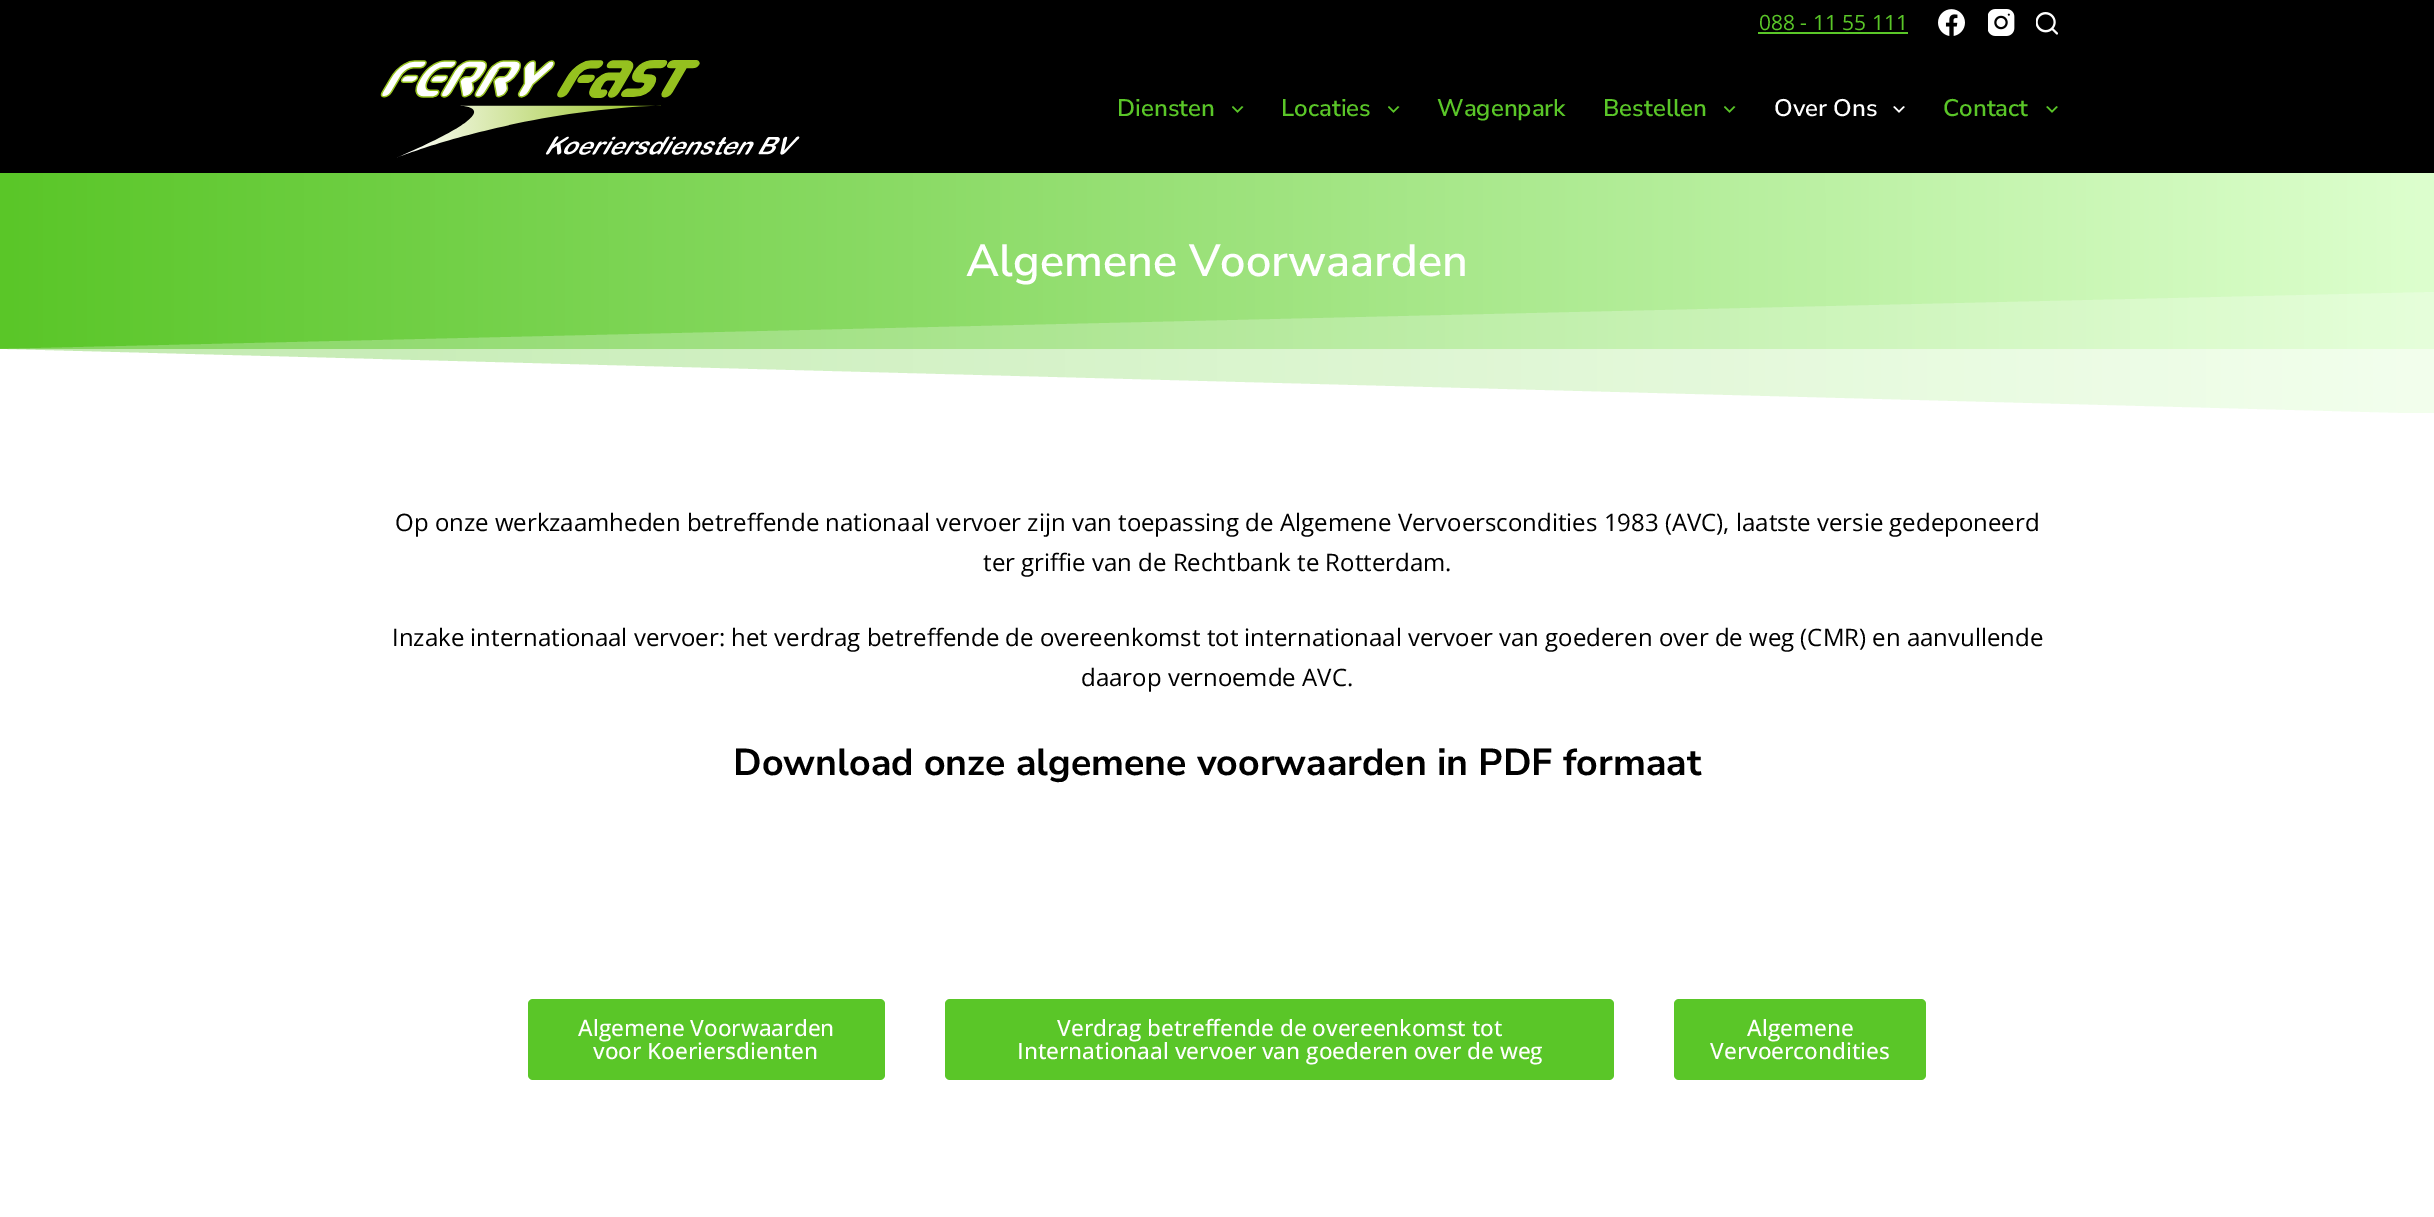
%!PS-Adobe-3.0
%%BoundingBox: 0 0 2434 1217
%%LanguageLevel: 3
%%Pages: 1
%%EndComments
%%BeginProlog
/m { moveto } bind def
/l { lineto } bind def
/h { closepath } bind def
/f { fill } bind def
/q { gsave } bind def
/Q { grestore } bind def
/fn { [ exch dup neg 0 0 3 -1 roll 0 0 ] selectfont } def
/tx { moveto show } def
/bx { rectfill } def
/al { dup .setfillconstantalpha .setstrokeconstantalpha } def
/rr { 5 dict begin { /r /h /w /y /x } { exch def } forall
  x r add y moveto x w add y 2 copy h add r arct x w add y h add x 1 index r arct
  x y h add x y r arct x y 2 copy exch w add exch r arct closepath end } def
/im { 5 dict begin { /h /w /y /x /name } { exch def } forall
  gsave x y translate w h scale
  w h 8 [w 0 0 h 0 0] name (r) file false 3 colorimage grestore end } def
%%EndProlog
%%BeginSetup
<< /PageSize [2434 1217] /PageUsesTransparency true >> setpagedevice
%%EndSetup
%%Page: 1 1
0 .pushpdf14devicefilter
0 1217 translate 1 -1 scale
4 setmiterlimit
1 setgray
0 0 2434 1217 bx
0 setgray
0 0 2434 173 bx
/OpenSans-Regular 21 fn
0.353 0.776 0.157 setrgbcolor
(088 - 11 55 111) 1759 30 tx
1758 32 150 2 bx
(image0.raw) 1938 9 27 27 im
(image1.raw) 1988 9 27 27 im
(image2.raw) 2036 12 22 23 im
(image3.raw) 380 60 420 98 im
/NunitoSans-SemiBold 24 fn
(Diensten) 1117 116 tx
(image4.raw) 1232 106 12 7 im
(Locaties) 1281 116 tx
(image4.raw) 1388 106 12 7 im
(Wagenpark) 1437 116 tx
(Bestellen) 1603 116 tx
(image4.raw) 1724 106 12 7 im
1 setgray
(Over Ons) 1774 116 tx
(image5.raw) 1893 106 12 7 im
0.353 0.776 0.157 setrgbcolor
(Contact) 1943 116 tx
(image6.raw) 2046 106 12 7 im
q 0 173 m 2434 173 l 2434 349 l 0 349 l h clip newpath
<< /ShadingType 2 /ColorSpace /DeviceRGB /Coords [0 248 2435 247] /Extend [true true] /Function << /FunctionType 2 /Domain [0 1] /C0 [0.353 0.776 0.157] /C1 [0.867 1 0.808] /N 1 >> >> shfill Q
q 0 349 m 2434 349 l 2434 413 l 0 413 l h clip newpath
<< /ShadingType 2 /ColorSpace /DeviceRGB /Coords [0 248 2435 247] /Extend [true true] /Function << /FunctionType 2 /Domain [0 1] /C0 [0.678 0.89 0.58] /C1 [0.933 1 0.906] /N 1 >> >> shfill Q
/NunitoSans-SemiBold 45 fn
1 setgray
(Algemene Voorwaarden) 966 276 tx
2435 414 m -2 414 l -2 349 l h f
0.25 al
-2 414 m 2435 414 l 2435 292 l -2 349 l h f
/OpenSans-Regular 24 fn
1 al
0 setgray
(Op onze werkzaamheden betreffende nationaal vervoer zijn van toepassing de Algemene Vervoerscondities 1983 \(AVC\), laatste versie gedeponeerd) 395 531 tx
(ter griffie van de Rechtbank te Rotterdam.) 983 571 tx
(Inzake internationaal vervoer: het verdrag betreffende de overeenkomst tot internationaal vervoer van goederen over de weg \(CMR\) en aanvullende) 392 646 tx
(daarop vernoemde AVC.) 1081 686 tx
/NunitoSans-Bold 37.5 fn
(Download onze algemene voorwaarden in PDF formaat) 733 775 tx
0.353 0.776 0.157 setrgbcolor
528 999 357 81 5 rr f
/OpenSans-Medium 22.5 fn
1 setgray
(Algemene Voorwaarden) 578 1036 tx
(voor Koeriersdienten) 593 1059 tx
0.353 0.776 0.157 setrgbcolor
945 999 669 81 5 rr f
1 setgray
(Verdrag betreffende de overeenkomst tot) 1057 1036 tx
(Internationaal vervoer van goederen over de weg) 1017 1059 tx
0.353 0.776 0.157 setrgbcolor
1674 999 252 81 5 rr f
1 setgray
(Algemene) 1747 1036 tx
(Vervoercondities) 1710 1059 tx
.poppdf14devicefilter showpage
%%EOF
